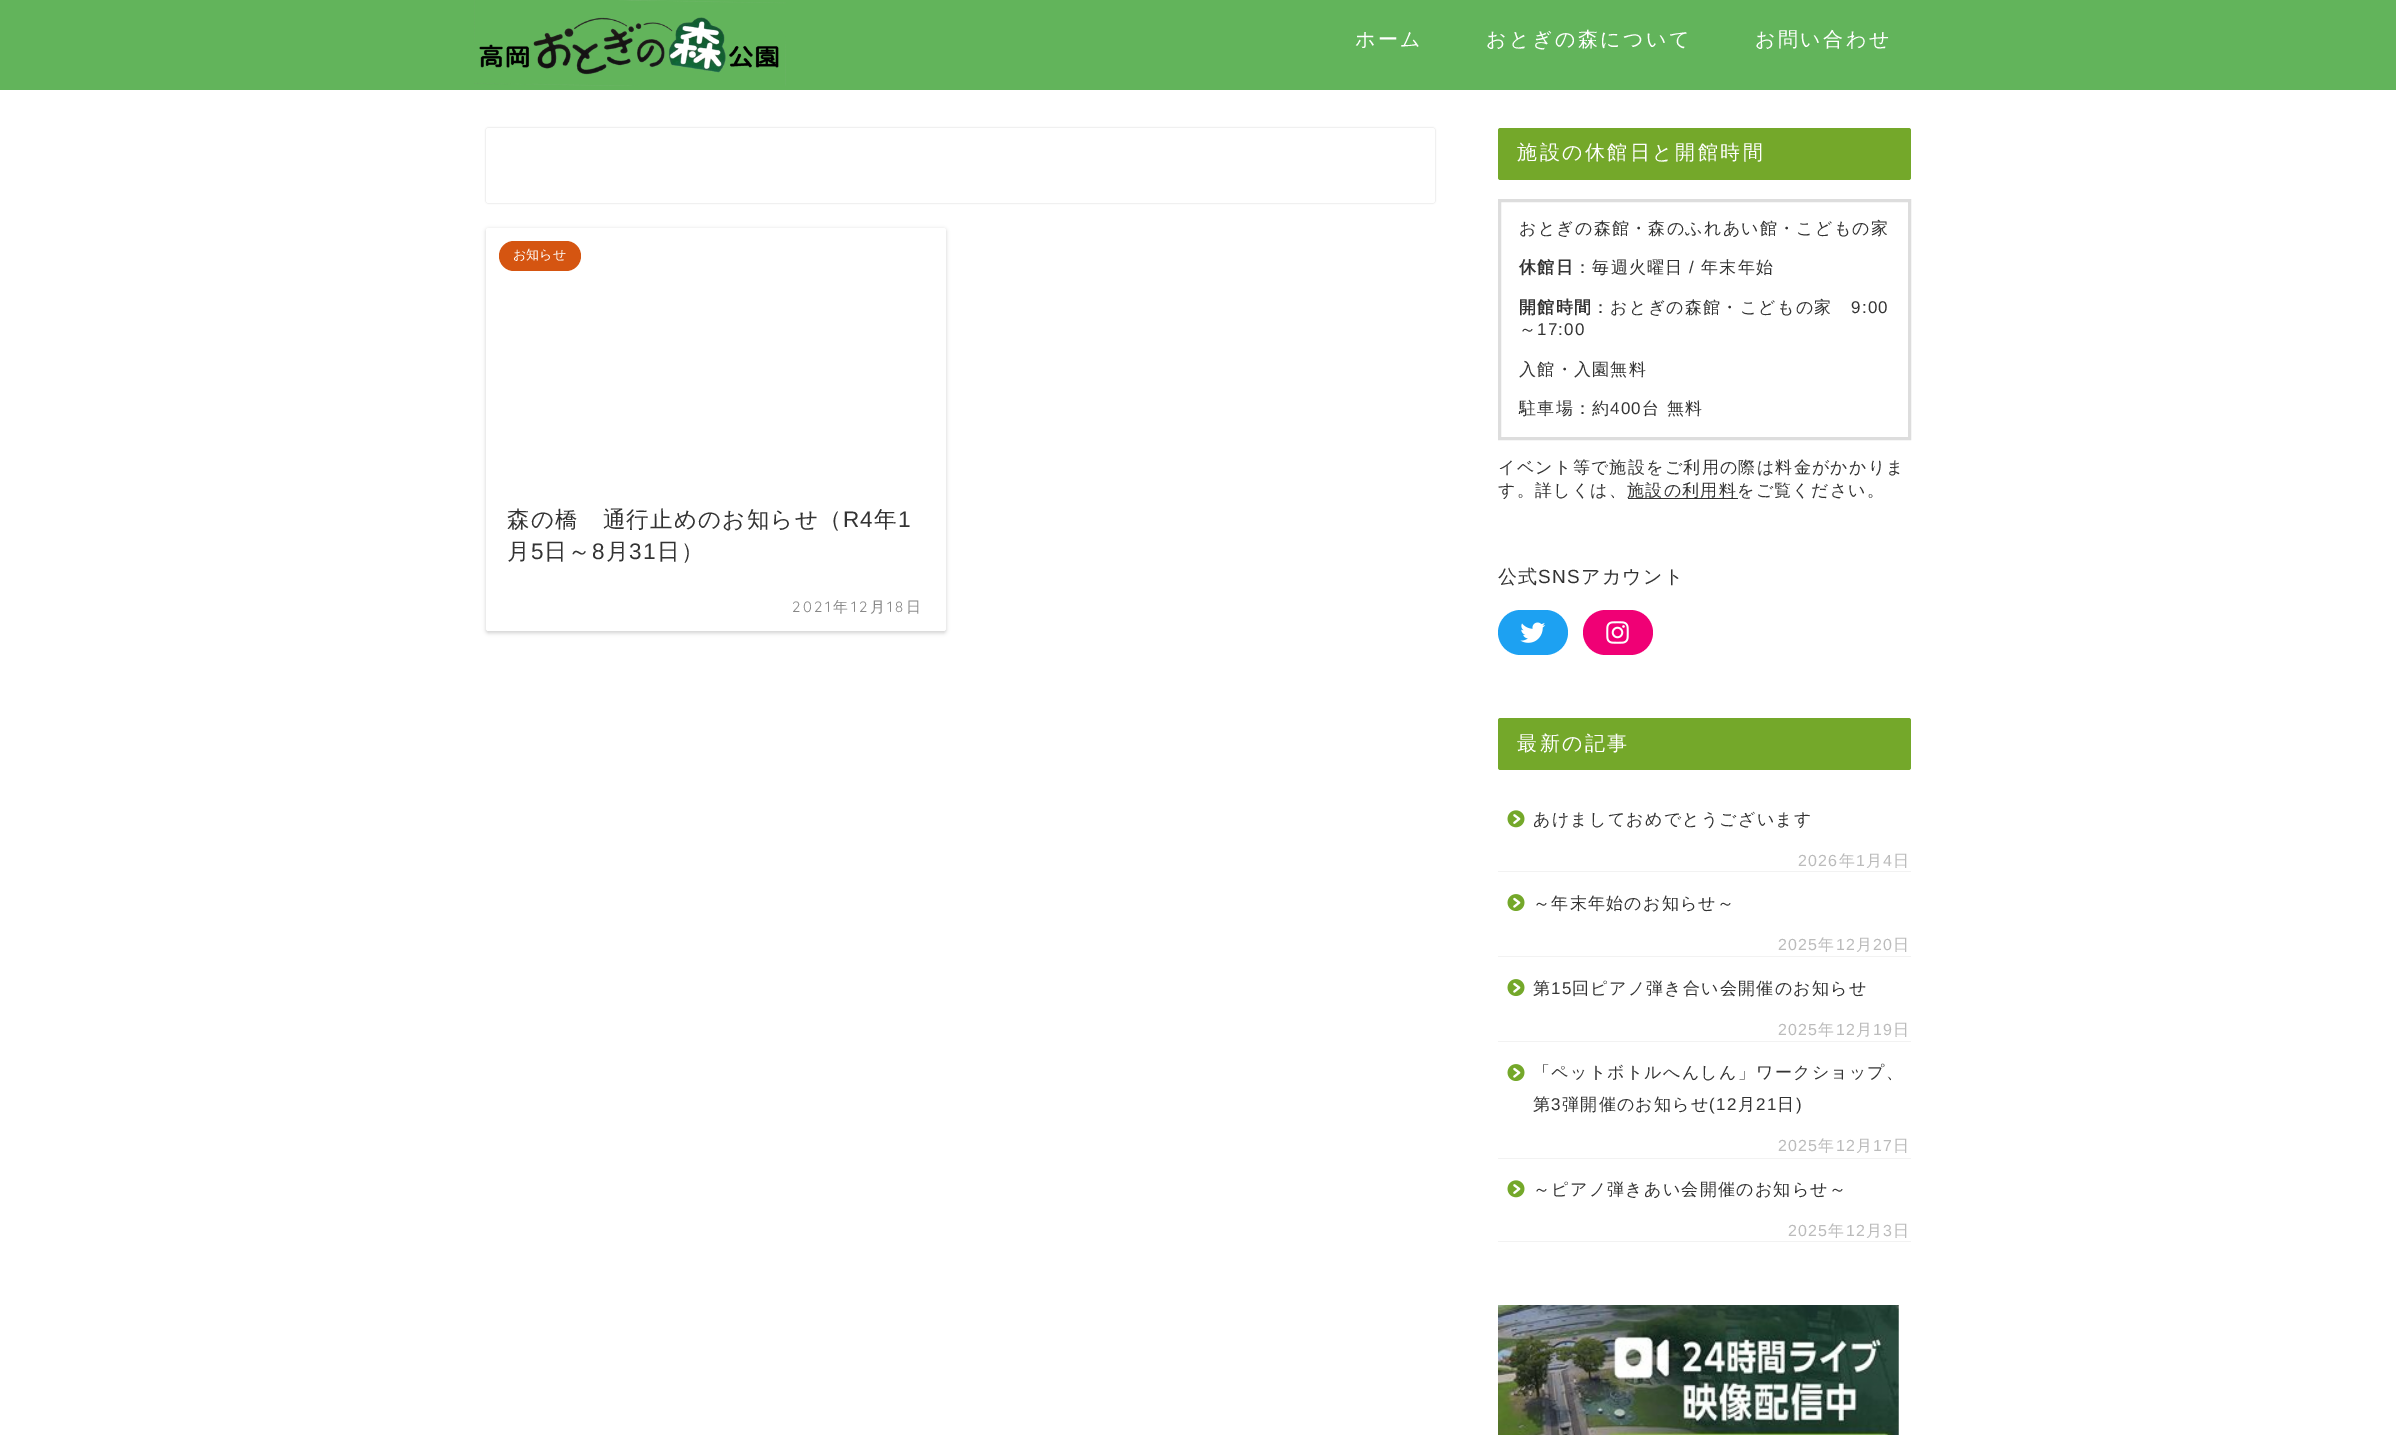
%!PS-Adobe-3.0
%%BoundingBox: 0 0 2396 1435
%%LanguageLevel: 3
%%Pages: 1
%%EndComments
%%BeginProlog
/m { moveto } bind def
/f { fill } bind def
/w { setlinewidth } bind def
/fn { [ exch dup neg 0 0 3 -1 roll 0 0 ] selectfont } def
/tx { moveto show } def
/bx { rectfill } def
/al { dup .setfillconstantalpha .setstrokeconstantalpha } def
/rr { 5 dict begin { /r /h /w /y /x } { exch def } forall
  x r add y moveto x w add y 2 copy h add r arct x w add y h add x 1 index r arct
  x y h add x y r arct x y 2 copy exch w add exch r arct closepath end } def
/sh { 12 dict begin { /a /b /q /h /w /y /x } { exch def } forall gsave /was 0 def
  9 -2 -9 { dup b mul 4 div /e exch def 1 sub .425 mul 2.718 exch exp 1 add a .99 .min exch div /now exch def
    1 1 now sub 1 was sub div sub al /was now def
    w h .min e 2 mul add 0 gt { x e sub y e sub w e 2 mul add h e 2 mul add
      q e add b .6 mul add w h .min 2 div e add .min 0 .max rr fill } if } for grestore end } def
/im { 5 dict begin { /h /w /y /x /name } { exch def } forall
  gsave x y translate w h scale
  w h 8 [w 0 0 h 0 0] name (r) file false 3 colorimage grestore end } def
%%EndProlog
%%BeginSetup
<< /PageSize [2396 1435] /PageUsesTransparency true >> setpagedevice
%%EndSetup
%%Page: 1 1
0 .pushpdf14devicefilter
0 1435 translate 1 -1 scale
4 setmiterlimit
1 setgray
0 0 2396 1435 bx
0.384 0.706 0.357 setrgbcolor
0 0 2396 90 bx
(image0.raw) 474 0 312 86 im
/WenQuanYiZenHei-Medium 20 fn
1 setgray
1355 46 m 2.5 0 (ホーム) ashow
1486 46 m 2.5 0 (おとぎの森について) ashow
1755 46 m 2.5 0 (お問い合わせ) ashow
0 setgray
486 128 949 75 2.5 1 0.18 sh
1 setgray
486 128 949 75 2.5 rr f
0 setgray
486 229 460 404 2.5 2 0.18 sh
1 setgray
486 228 460 403 2.5 rr f
0.835 0.333 0.067 setrgbcolor
499 241 82 30 15 rr f
/WenQuanYiZenHei-Medium 13 fn
1 setgray
(お知らせ) 513 259 tx
/WenQuanYiZenHei-Medium 22.5 fn
0.2 setgray
507 527 m 1.25 0 (森の橋　通行止めのお知らせ（) ashow
/LiberationSans-Regular 22.5 fn
843 527 m 1.25 0 (R4) ashow
/WenQuanYiZenHei-Medium 22.5 fn
874 527 m 1.25 0 (年) ashow
/LiberationSans-Regular 22.5 fn
898 527 m 1.25 0 (1) ashow
/WenQuanYiZenHei-Medium 22.5 fn
507 559 m 1.25 0 (月) ashow
/LiberationSans-Regular 22.5 fn
531 559 m 1.25 0 (5) ashow
/WenQuanYiZenHei-Medium 22.5 fn
544 559 m 1.25 0 (日～) ashow
/LiberationSans-Regular 22.5 fn
592 559 m 1.25 0 (8) ashow
/WenQuanYiZenHei-Medium 22.5 fn
606 559 m 1.25 0 (月) ashow
/LiberationSans-Regular 22.5 fn
629 559 m 1.25 0 (31) ashow
/WenQuanYiZenHei-Medium 22.5 fn
657 559 m 1.25 0 (日）) ashow
/Quicksand-Light 15 fn
0.533 setgray
792 612 m 2.5 0 (2021) ashow
/WenQuanYiZenHei-Medium 15 fn
833 612 m 2.5 0 (年) ashow
/Quicksand-Light 15 fn
851 612 m 2.5 0 (12) ashow
/WenQuanYiZenHei-Medium 15 fn
870 612 m 2.5 0 (月) ashow
/Quicksand-Light 15 fn
887 612 m 2.5 0 (18) ashow
/WenQuanYiZenHei-Medium 15 fn
906 612 m 2.5 0 (日) ashow
0.455 0.659 0.165 setrgbcolor
1498 128 413 52 2.5 rr f
/WenQuanYiZenHei-Medium 20 fn
1 setgray
1517 159 m 2.5 0 (施設の休館日と開館時間) ashow
0.867 setgray
3 w
1499.5 200.5 410 238 rectstroke
/WenQuanYiZenHei-Medium 17 fn
0.2 setgray
1519 234 m 1.25 0 (おとぎの森館・森のふれあい館・こどもの家) ashow
/WenQuanYiZenHei-Bold 17 fn
1519 273 m 1.25 0 (休館日) ashow
/WenQuanYiZenHei-Medium 17 fn
1574 273 m 1.25 0 (：毎週火曜日) ashow
/LiberationSans-Regular 17 fn
1689 273 m 1.25 0 (/) ashow
/WenQuanYiZenHei-Medium 17 fn
1701 273 m 1.25 0 (年末年始) ashow
/WenQuanYiZenHei-Bold 17 fn
1519 313 m 1.25 0 (開館時間) ashow
/WenQuanYiZenHei-Medium 17 fn
1592 313 m 1.25 0 (：おとぎの森館・こどもの家) ashow
/LiberationSans-Regular 17 fn
1851 313 m 1.25 0 (9:00) ashow
/WenQuanYiZenHei-Medium 17 fn
1519 335 m 1.25 0 (～) ashow
/LiberationSans-Regular 17 fn
1537 335 m 1.25 0 (17:00) ashow
/WenQuanYiZenHei-Medium 17 fn
1519 375 m 1.25 0 (入館・入園無料) ashow
1519 414 m 1.25 0 (駐車場：約) ashow
/LiberationSans-Regular 17 fn
1610 414 m 1.25 0 (400) ashow
/WenQuanYiZenHei-Medium 17 fn
1642 414 m 1.25 0 (台 無料) ashow
1498 473 m 1.25 0 (イベント等で施設をご利用の際は料金がかかりま) ashow
1498 496 m 1.25 0 (す。詳しくは、) ashow
1628 498 110 1 bx
1627 496 m 1.25 0 (施設の利用料をご覧ください。) ashow
/WenQuanYiZenHei-Medium 19 fn
1498 583 m 1.25 0 (公式) ashow
/LiberationSans-Regular 19 fn
1538 583 m 1.25 0 (SNS) ashow
/WenQuanYiZenHei-Medium 19 fn
1581 583 m 1.25 0 (アカウント) ashow
0.114 0.631 0.949 setrgbcolor
1498 610 70 45 22.5 rr f
(image1.raw) 1520 622 26 21 im
0.941 0 0.459 setrgbcolor
1583 610 70 45 22.5 rr f
(image2.raw) 1606 621 23 23 im
0.455 0.659 0.165 setrgbcolor
1498 718 413 52 2.5 rr f
/WenQuanYiZenHei-Medium 20 fn
1 setgray
1517 750 m 2.5 0 (最新の記事) ashow
0.949 setgray
1498 871 413 1 bx
(image3.raw) 1507 810 18 18 im
/WenQuanYiZenHei-Medium 17 fn
0.2 setgray
1533 825 m 1.25 0 (あけましておめでとうございます) ashow
/LiberationSans-Regular 16 fn
0.733 setgray
1798 866 m 1.25 0 (2026) ashow
/WenQuanYiZenHei-Medium 16 fn
1839 866 m 1.25 0 (年) ashow
/LiberationSans-Regular 16 fn
1856 866 m 1.25 0 (1) ashow
/WenQuanYiZenHei-Medium 16 fn
1866 866 m 1.25 0 (月) ashow
/LiberationSans-Regular 16 fn
1883 866 m 1.25 0 (4) ashow
/WenQuanYiZenHei-Medium 16 fn
1893 866 m 1.25 0 (日) ashow
0.949 setgray
1498 956 413 1 bx
(image4.raw) 1507 894 18 17 im
/WenQuanYiZenHei-Medium 17 fn
0.2 setgray
1533 909 m 1.25 0 (～年末年始のお知らせ～) ashow
/LiberationSans-Regular 16 fn
0.733 setgray
1778 950 m 1.25 0 (2025) ashow
/WenQuanYiZenHei-Medium 16 fn
1818 950 m 1.25 0 (年) ashow
/LiberationSans-Regular 16 fn
1836 950 m 1.25 0 (12) ashow
/WenQuanYiZenHei-Medium 16 fn
1856 950 m 1.25 0 (月) ashow
/LiberationSans-Regular 16 fn
1873 950 m 1.25 0 (20) ashow
/WenQuanYiZenHei-Medium 16 fn
1893 950 m 1.25 0 (日) ashow
0.949 setgray
1498 1041 413 1 bx
(image4.raw) 1507 979 18 17 im
/WenQuanYiZenHei-Medium 17 fn
0.2 setgray
1533 994 m 1.25 0 (第) ashow
/LiberationSans-Regular 17 fn
1551 994 m 1.25 0 (15) ashow
/WenQuanYiZenHei-Medium 17 fn
1572 994 m 1.25 0 (回ピアノ弾き合い会開催のお知らせ) ashow
/LiberationSans-Regular 16 fn
0.733 setgray
1778 1035 m 1.25 0 (2025) ashow
/WenQuanYiZenHei-Medium 16 fn
1818 1035 m 1.25 0 (年) ashow
/LiberationSans-Regular 16 fn
1836 1035 m 1.25 0 (12) ashow
/WenQuanYiZenHei-Medium 16 fn
1856 1035 m 1.25 0 (月) ashow
/LiberationSans-Regular 16 fn
1873 1035 m 1.25 0 (19) ashow
/WenQuanYiZenHei-Medium 16 fn
1893 1035 m 1.25 0 (日) ashow
0.949 setgray
1498 1158 413 1 bx
(image4.raw) 1507 1064 18 17 im
/WenQuanYiZenHei-Medium 17 fn
0.2 setgray
1533 1078 m 1.25 0 (「ペットボトルへんしん」ワークショップ、) ashow
1533 1110 m 1.25 0 (第) ashow
/LiberationSans-Regular 17 fn
1551 1110 m 1.25 0 (3) ashow
/WenQuanYiZenHei-Medium 17 fn
1562 1110 m 1.25 0 (弾開催のお知らせ) ashow
/LiberationSans-Regular 17 fn
1709 1110 m 1.25 0 (\(12) ashow
/WenQuanYiZenHei-Medium 17 fn
1738 1110 m 1.25 0 (月) ashow
/LiberationSans-Regular 17 fn
1756 1110 m 1.25 0 (21) ashow
/WenQuanYiZenHei-Medium 17 fn
1777 1110 m 1.25 0 (日) ashow
/LiberationSans-Regular 17 fn
1796 1110 m 1.25 0 (\)) ashow
/LiberationSans-Regular 16 fn
0.733 setgray
1778 1151 m 1.25 0 (2025) ashow
/WenQuanYiZenHei-Medium 16 fn
1818 1151 m 1.25 0 (年) ashow
/LiberationSans-Regular 16 fn
1836 1151 m 1.25 0 (12) ashow
/WenQuanYiZenHei-Medium 16 fn
1856 1151 m 1.25 0 (月) ashow
/LiberationSans-Regular 16 fn
1873 1151 m 1.25 0 (17) ashow
/WenQuanYiZenHei-Medium 16 fn
1893 1151 m 1.25 0 (日) ashow
0.949 setgray
1498 1241 413 1 bx
(image3.raw) 1507 1180 18 18 im
/WenQuanYiZenHei-Medium 17 fn
0.2 setgray
1533 1195 m 1.25 0 (～ピアノ弾きあい会開催のお知らせ～) ashow
/LiberationSans-Regular 16 fn
0.733 setgray
1788 1236 m 1.25 0 (2025) ashow
/WenQuanYiZenHei-Medium 16 fn
1828 1236 m 1.25 0 (年) ashow
/LiberationSans-Regular 16 fn
1846 1236 m 1.25 0 (12) ashow
/WenQuanYiZenHei-Medium 16 fn
1866 1236 m 1.25 0 (月) ashow
/LiberationSans-Regular 16 fn
1883 1236 m 1.25 0 (3) ashow
/WenQuanYiZenHei-Medium 16 fn
1893 1236 m 1.25 0 (日) ashow
(image5.raw) 1498 1305 401 130 im
.poppdf14devicefilter showpage
%%EOF
